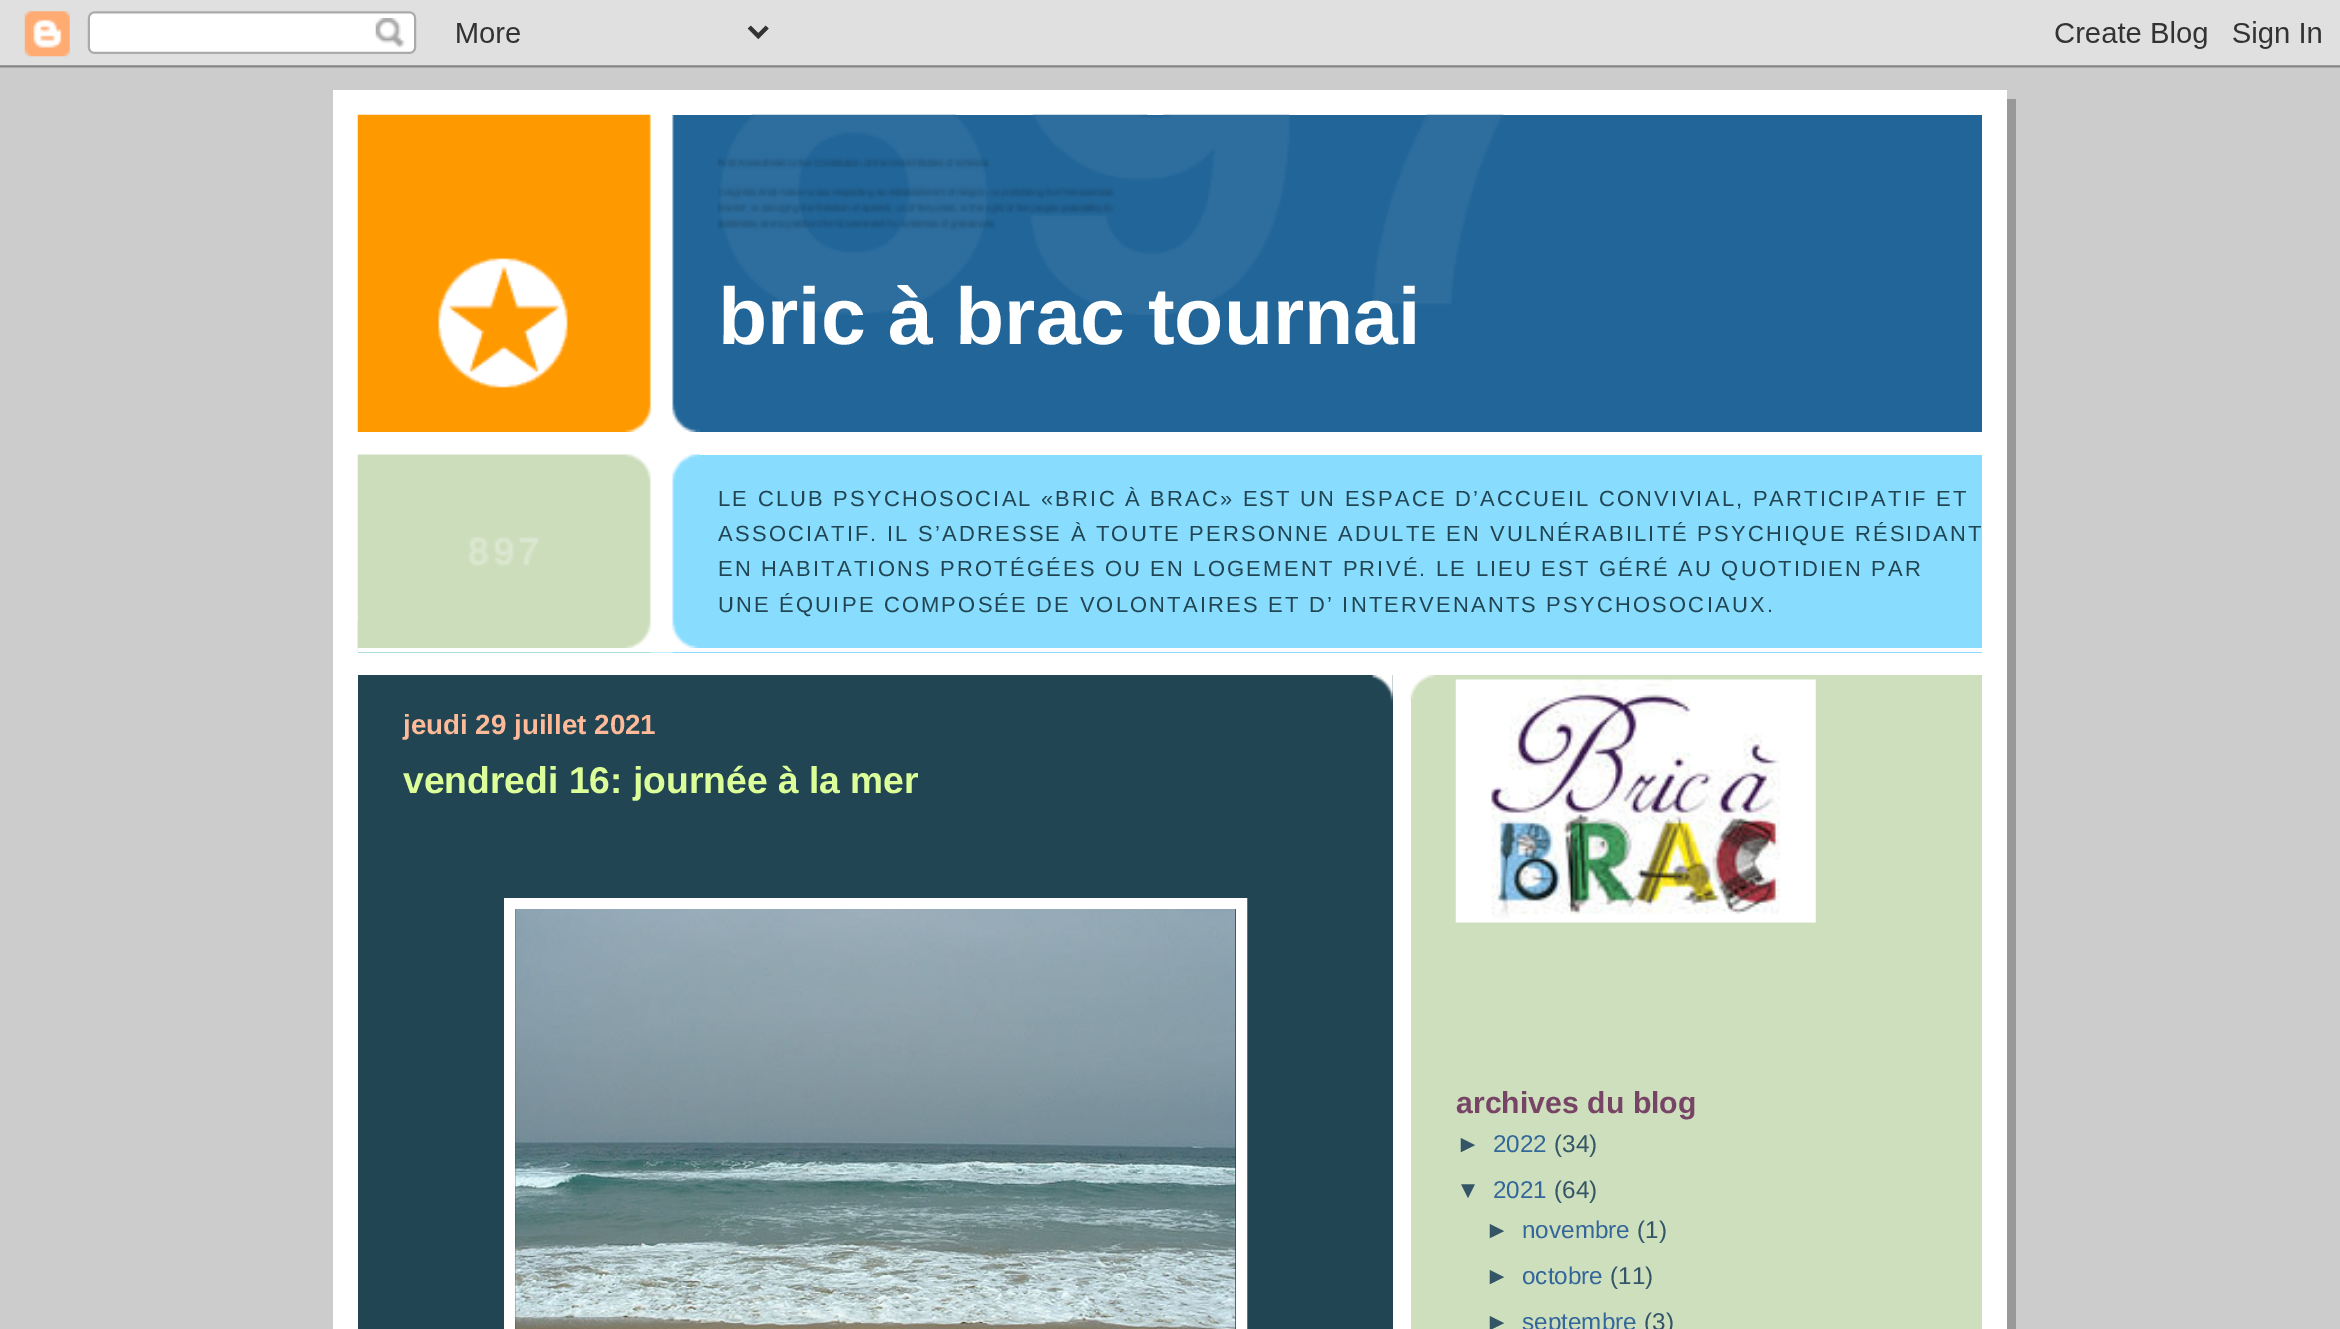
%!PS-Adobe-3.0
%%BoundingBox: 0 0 2340 1329
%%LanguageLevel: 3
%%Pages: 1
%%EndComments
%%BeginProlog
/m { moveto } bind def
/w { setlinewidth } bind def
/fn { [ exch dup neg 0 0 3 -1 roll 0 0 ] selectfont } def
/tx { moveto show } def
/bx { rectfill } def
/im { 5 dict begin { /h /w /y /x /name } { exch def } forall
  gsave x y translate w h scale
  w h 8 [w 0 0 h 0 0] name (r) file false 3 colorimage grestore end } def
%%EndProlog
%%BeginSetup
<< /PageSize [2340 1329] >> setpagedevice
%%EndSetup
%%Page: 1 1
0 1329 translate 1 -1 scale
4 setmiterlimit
0.8 setgray
0 0 2340 1329 bx
(image0.raw) 0 0 2340 68 im
0.6 setgray
2007 99 9 1230 bx
1 setgray
333 90 1674 1239 bx
0.133 0.4 0.6 setrgbcolor
672 115 1310 317 bx
(image1.raw) 357 114 343 318 im
(image2.raw) 717 114 787 201 im
/LiberationSans-Bold 80.5 fn
1 setgray
(bric à brac tournai) 718 344 tx
0.533 0.867 1 setrgbcolor
358 455 1624 198 bx
(image3.raw) 357 454 343 199 im
1 setgray
358 648 1624 4 bx
(image4.raw) 357 621 342 27 im
(image5.raw) 468 537 71 29 im
/LiberationSans-Regular 21.95 fn
0.129 0.271 0.322 setrgbcolor
718 506 m 2.2 0 (LE CLUB PSYCHOSOCIAL «BRIC À BRAC» EST UN ESPACE D’ACCUEIL CONVIVIAL, PARTICIPATIF ET) ashow
718 541 m 2.2 0 (ASSOCIATIF. IL S’ADRESSE À TOUTE PERSONNE ADULTE EN VULNÉRABILITÉ PSYCHIQUE RÉSIDANT) ashow
718 576 m 2.2 0 (EN HABITATIONS PROTÉGÉES OU EN LOGEMENT PRIVÉ. LE LIEU EST GÉRÉ AU QUOTIDIEN PAR) ashow
718 612 m 2.2 0 (UNE ÉQUIPE COMPOSÉE DE VOLONTAIRES ET D’ INTERVENANTS PSYCHOSOCIAUX.) ashow
358 675 1035 654 bx
(image6.raw) 1372 675 21 27 im
/LiberationSans-Bold 27.75 fn
1 0.733 0.6 setrgbcolor
(jeudi 29 juillet 2021) 403 734 tx
/LiberationSans-Bold 37.25 fn
0.867 1 0.6 setrgbcolor
(vendredi 16: journée à la mer) 403 793 tx
1 setgray
11 w
509.5 903.5 732 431 rectstroke
(image7.raw) 515 909 721 420 im
0.808 0.875 0.741 setrgbcolor
1411 675 571 654 bx
(image8.raw) 1410 675 25 27 im
(image9.raw) 1455 679 361 244 im
/LiberationSans-Bold 30.25 fn
0.467 0.267 0.4 setrgbcolor
(archives du blog) 1456 1113 tx
/LiberationSans-Regular 24.25 fn
0.2 0.333 0.4 setrgbcolor
(►) 1456 1152 tx
0.2 0.4 0.6 setrgbcolor
(2022) 1493 1152 tx
0.2 0.333 0.4 setrgbcolor
(\(34\)) 1554 1152 tx
(▼) 1456 1198 tx
0.2 0.4 0.6 setrgbcolor
(2021) 1493 1198 tx
0.2 0.333 0.4 setrgbcolor
(\(64\)) 1554 1198 tx
(►) 1485 1238 tx
0.2 0.4 0.6 setrgbcolor
(novembre) 1522 1238 tx
0.2 0.333 0.4 setrgbcolor
(\(1\)) 1637 1238 tx
(►) 1485 1284 tx
0.2 0.4 0.6 setrgbcolor
(octobre) 1522 1284 tx
0.2 0.333 0.4 setrgbcolor
(\(11\)) 1610 1284 tx
(►) 1485 1330 tx
0.2 0.4 0.6 setrgbcolor
(septembre) 1522 1330 tx
0.2 0.333 0.4 setrgbcolor
(\(3\)) 1644 1330 tx
showpage
%%EOF
